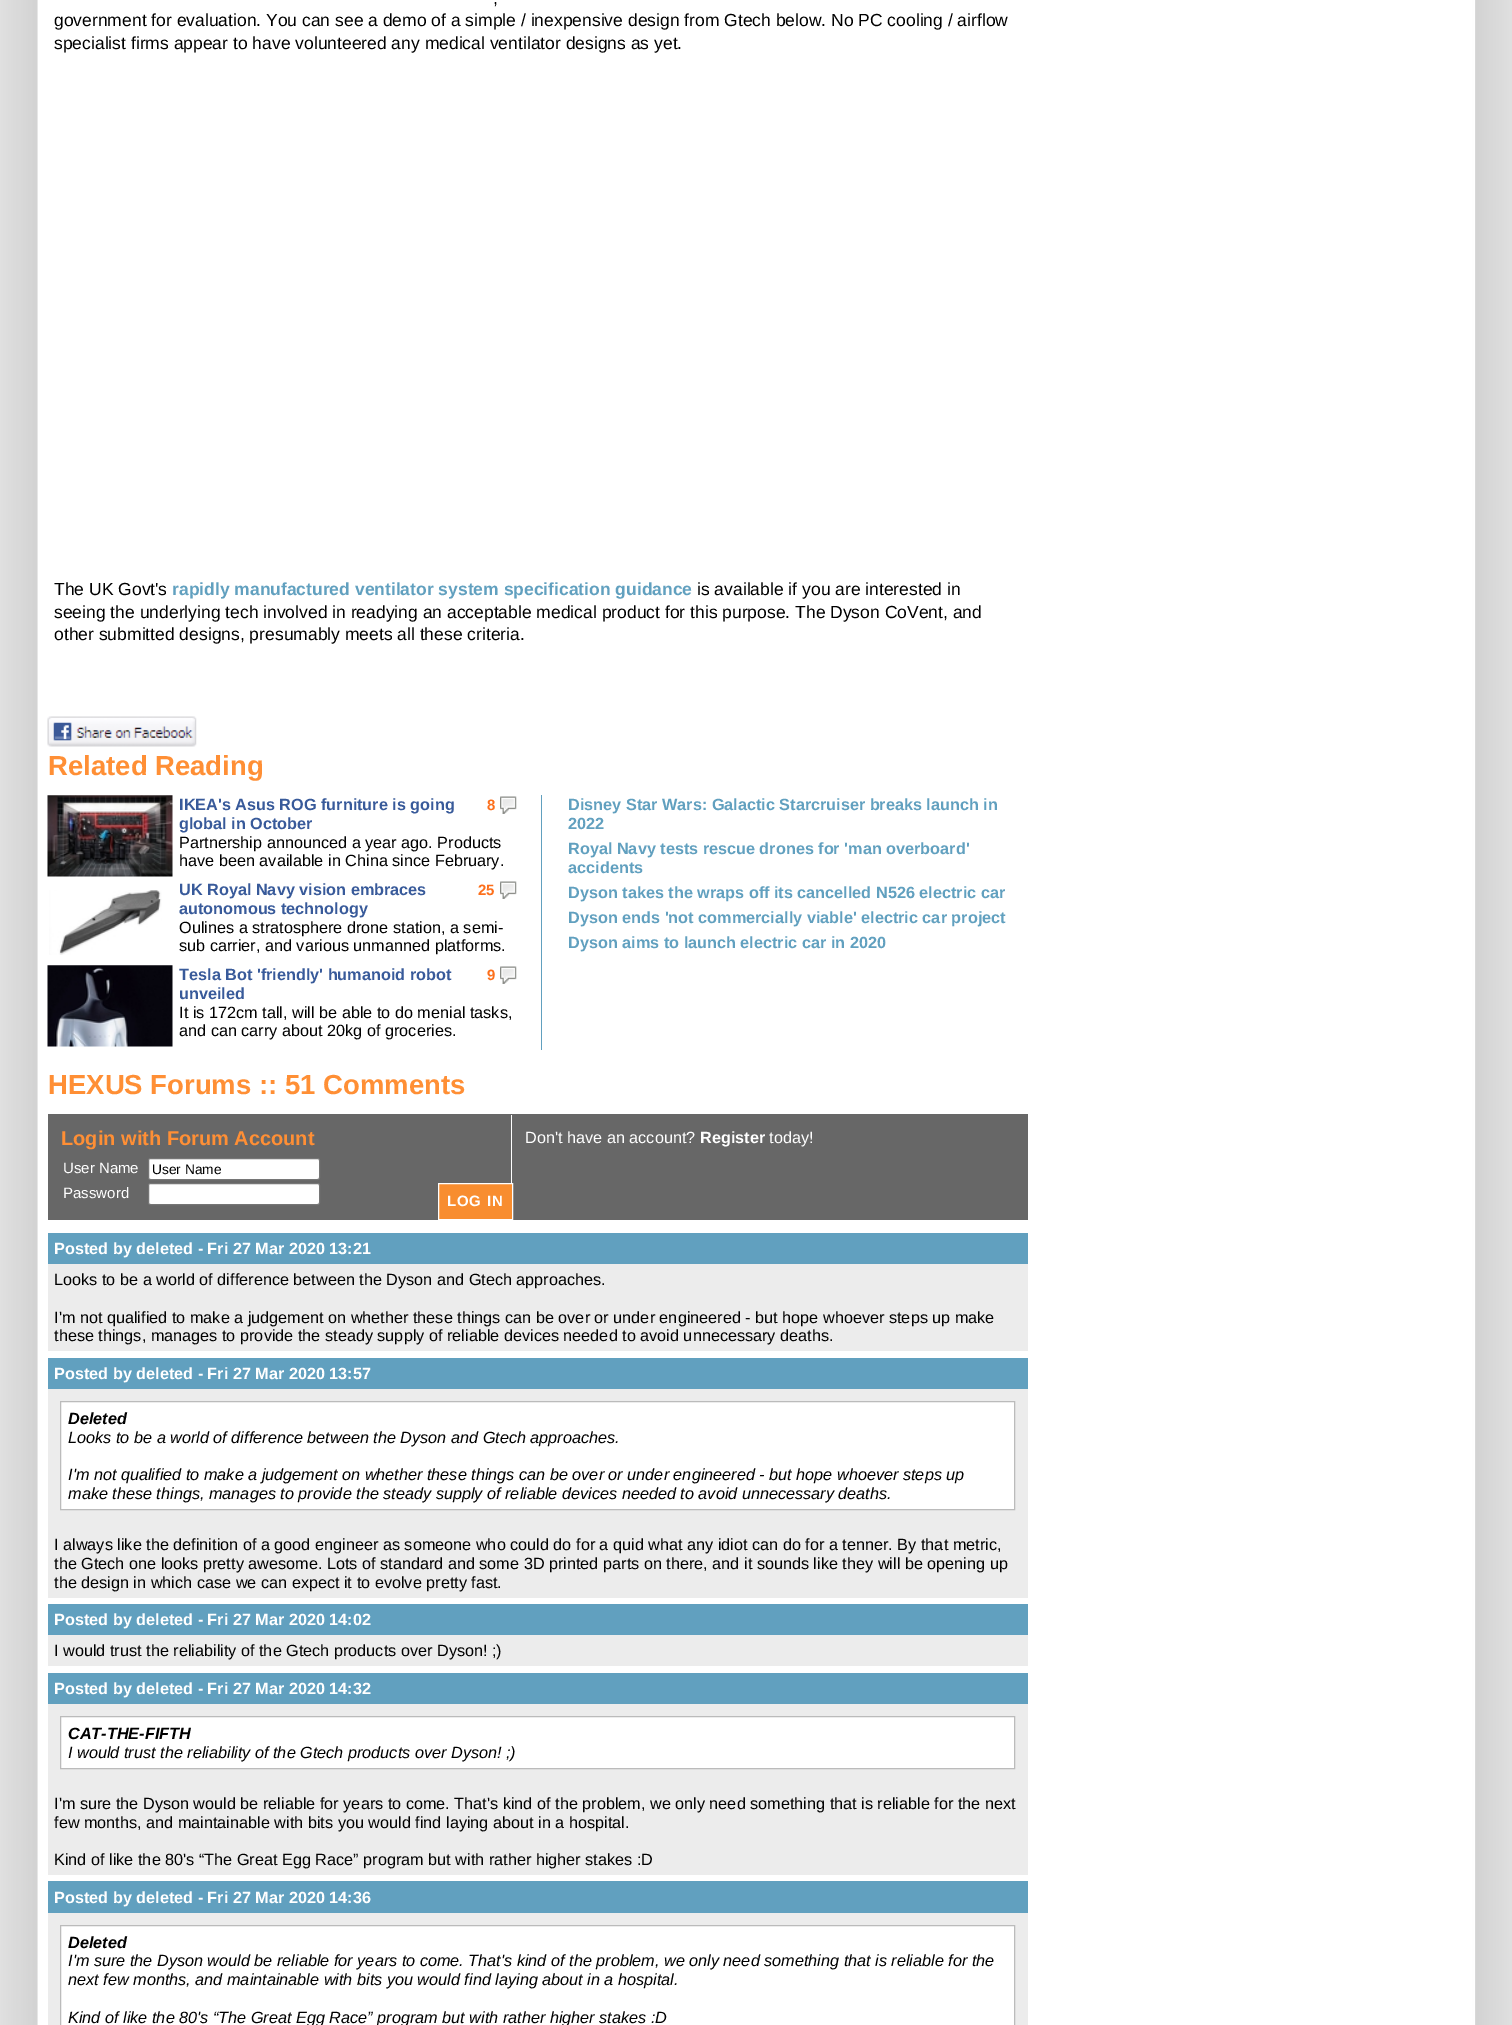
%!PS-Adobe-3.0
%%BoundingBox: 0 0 1512 2025
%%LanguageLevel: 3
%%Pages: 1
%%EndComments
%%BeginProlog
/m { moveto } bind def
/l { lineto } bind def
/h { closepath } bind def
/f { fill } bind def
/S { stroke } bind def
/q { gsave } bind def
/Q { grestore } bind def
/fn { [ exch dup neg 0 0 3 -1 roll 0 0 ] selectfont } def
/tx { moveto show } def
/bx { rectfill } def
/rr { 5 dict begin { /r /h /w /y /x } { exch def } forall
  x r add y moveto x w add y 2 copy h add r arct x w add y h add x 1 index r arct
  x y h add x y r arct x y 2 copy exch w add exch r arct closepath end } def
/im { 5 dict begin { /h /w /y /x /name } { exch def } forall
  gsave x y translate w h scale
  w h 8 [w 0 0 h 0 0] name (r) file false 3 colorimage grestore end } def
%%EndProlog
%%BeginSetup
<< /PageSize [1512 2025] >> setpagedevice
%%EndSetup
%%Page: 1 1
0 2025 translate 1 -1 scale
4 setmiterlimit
1 setgray
0 0 1512 2025 bx
(image0.raw) 0 0 1512 2025 im
1474 0 1 2025 bx
/LiberationSans-Regular 17.5 fn
0 setgray
(,) 493 4 tx
(government for evaluation. You can see a demo of a simple / inexpensive design from Gtech below. No PC cooling / airflow) 54 26 tx
(specialist firms appear to have volunteered any medical ventilator designs as yet.) 54 49 tx
(The UK Govt's) 54 595 tx
/LiberationSans-Bold 17.5 fn
0.38 0.627 0.749 setrgbcolor
(rapidly manufactured ventilator system specification guidance) 172 595 tx
/LiberationSans-Regular 17.5 fn
0 setgray
(is available if you are interested in) 697 595 tx
(seeing the underlying tech involved in readying an acceptable medical product for this purpose. The Dyson CoVent, and) 54 618 tx
(other submitted designs, presumably meets all these criteria.) 54 640 tx
(image1.raw) 47 716 150 31 im
/LiberationSans-Bold 27.5 fn
1 0.561 0.208 setrgbcolor
(Related Reading) 48 775 tx
0.38 0.627 0.749 setrgbcolor
541 795 1 255 bx
(image2.raw) 47 795 126 82 im
/LiberationSans-Bold 16.25 fn
0.22 0.353 0.604 setrgbcolor
(IKEA's Asus ROG furniture is going) 179 810 tx
(image3.raw) 500 796 17 18 im
/LiberationSans-Bold 15 fn
0.992 0.435 0.106 setrgbcolor
(8) 487 810 tx
/LiberationSans-Bold 16.25 fn
0.22 0.353 0.604 setrgbcolor
(global in October) 179 829 tx
/LiberationSans-Regular 16.25 fn
0 setgray
(Partnership announced a year ago. Products) 179 848 tx
(have been available in China since February.) 179 866 tx
(image4.raw) 49 890 113 65 im
/LiberationSans-Bold 16.25 fn
0.22 0.353 0.604 setrgbcolor
(UK Royal Navy vision embraces) 179 895 tx
(image3.raw) 500 881 17 18 im
/LiberationSans-Bold 15 fn
0.992 0.435 0.106 setrgbcolor
(25) 478 895 tx
/LiberationSans-Bold 16.25 fn
0.22 0.353 0.604 setrgbcolor
(autonomous technology) 179 914 tx
/LiberationSans-Regular 16.25 fn
0 setgray
(Oulines a stratosphere drone station, a semi-) 179 933 tx
(sub carrier, and various unmanned platforms.) 179 951 tx
(image5.raw) 47 965 126 82 im
/LiberationSans-Bold 16.25 fn
0.22 0.353 0.604 setrgbcolor
(Tesla Bot 'friendly' humanoid robot) 179 980 tx
(image3.raw) 500 966 17 18 im
/LiberationSans-Bold 15 fn
0.992 0.435 0.106 setrgbcolor
(9) 487 980 tx
/LiberationSans-Bold 16.25 fn
0.22 0.353 0.604 setrgbcolor
(unveiled) 179 999 tx
/LiberationSans-Regular 16.25 fn
0 setgray
(It is 172cm tall, will be able to do menial tasks,) 179 1018 tx
(and can carry about 20kg of groceries.) 179 1036 tx
/LiberationSans-Bold 16.25 fn
0.38 0.627 0.749 setrgbcolor
(Disney Star Wars: Galactic Starcruiser breaks launch in) 568 810 tx
(2022) 568 829 tx
(Royal Navy tests rescue drones for 'man overboard') 568 854 tx
(accidents) 568 873 tx
(Dyson takes the wraps off its cancelled N526 electric car) 568 898 tx
(Dyson ends 'not commercially viable' electric car project) 568 923 tx
(Dyson aims to launch electric car in 2020) 568 948 tx
/LiberationSans-Bold 27.5 fn
1 0.561 0.208 setrgbcolor
(HEXUS Forums :: 51 Comments) 48 1094 tx
0.404 setgray
48 1114 980 106 bx
1 setgray
511 1115 1 68 bx
/LiberationSans-Bold 20 fn
1 0.561 0.208 setrgbcolor
(Login with Forum Account) 61 1145 tx
/LiberationSans-Regular 15 fn
1 setgray
(User Name) 63 1173 tx
148.5 1158.5 171 21 2 rr q f Q
0.463 setgray
S
/LiberationSans-Regular 13.75 fn
0 setgray
(User Name) 152 1174 tx
/LiberationSans-Regular 15 fn
1 setgray
(Password) 63 1198 tx
148.5 1183.5 171 21 2 rr q f Q
0.463 setgray
S
0.973 0.553 0.184 setrgbcolor
438.5 1183.5 m 512.5 1183.5 l 512.5 1219.5 l 438.5 1219.5 l h q f Q
1 setgray
S
/LiberationSans-Bold 15 fn
447 1206 m 0.75 0 (LOG IN) ashow
/LiberationSans-Regular 16.25 fn
(Don't have an account?) 525 1143 tx
/LiberationSans-Bold 16.25 fn
(Register) 700 1143 tx
/LiberationSans-Regular 16.25 fn
(today!) 769 1143 tx
0.38 0.627 0.749 setrgbcolor
48 1233 980 31 bx
/LiberationSans-Bold 16.25 fn
1 setgray
(Posted by deleted - Fri 27 Mar 2020 13:21) 54 1254 tx
0.925 setgray
48 1264 980 87 bx
/LiberationSans-Regular 16.25 fn
0 setgray
(Looks to be a world of difference between the Dyson and Gtech approaches.) 54 1285 tx
(I'm not qualified to make a judgement on whether these things can be over or under engineered - but hope whoever steps up make) 54 1323 tx
(these things, manages to provide the steady supply of reliable devices needed to avoid unnecessary deaths.) 54 1341 tx
0.38 0.627 0.749 setrgbcolor
48 1358 980 31 bx
/LiberationSans-Bold 16.25 fn
1 setgray
(Posted by deleted - Fri 27 Mar 2020 13:57) 54 1379 tx
0.925 setgray
48 1389 980 209 bx
1 setgray
60.5 1401.5 m 1014.5 1401.5 l 1014.5 1509.5 l 60.5 1509.5 l h q f Q
0.733 setgray
S
/LiberationSans-BoldItalic 16.25 fn
0 setgray
(Deleted) 68 1424 tx
/LiberationSans-Italic 16.25 fn
(Looks to be a world of difference between the Dyson and Gtech approaches.) 68 1443 tx
(I'm not qualified to make a judgement on whether these things can be over or under engineered - but hope whoever steps up) 68 1480 tx
(make these things, manages to provide the steady supply of reliable devices needed to avoid unnecessary deaths.) 68 1499 tx
/LiberationSans-Regular 16.25 fn
(I always like the definition of a good engineer as someone who could do for a quid what any idiot can do for a tenner. By that metric,) 54 1550 tx
(the Gtech one looks pretty awesome. Lots of standard and some 3D printed parts on there, and it sounds like they will be opening up) 54 1569 tx
(the design in which case we can expect it to evolve pretty fast.) 54 1588 tx
0.38 0.627 0.749 setrgbcolor
48 1604 980 31 bx
/LiberationSans-Bold 16.25 fn
1 setgray
(Posted by deleted - Fri 27 Mar 2020 14:02) 54 1625 tx
0.925 setgray
48 1635 980 31 bx
/LiberationSans-Regular 16.25 fn
0 setgray
(I would trust the reliability of the Gtech products over Dyson! ;\)) 54 1656 tx
0.38 0.627 0.749 setrgbcolor
48 1673 980 31 bx
/LiberationSans-Bold 16.25 fn
1 setgray
(Posted by deleted - Fri 27 Mar 2020 14:32) 54 1694 tx
0.925 setgray
48 1704 980 171 bx
1 setgray
60.5 1716.5 m 1014.5 1716.5 l 1014.5 1768.5 l 60.5 1768.5 l h q f Q
0.733 setgray
S
/LiberationSans-BoldItalic 16.25 fn
0 setgray
(CAT-THE-FIFTH) 68 1739 tx
/LiberationSans-Italic 16.25 fn
(I would trust the reliability of the Gtech products over Dyson! ;\)) 68 1758 tx
/LiberationSans-Regular 16.25 fn
(I'm sure the Dyson would be reliable for years to come. That's kind of the problem, we only need something that is reliable for the next) 54 1809 tx
(few months, and maintainable with bits you would find laying about in a hospital.) 54 1828 tx
(Kind of like the 80's “The Great Egg Race” program but with rather higher stakes :D) 54 1865 tx
0.38 0.627 0.749 setrgbcolor
48 1881 980 32 bx
/LiberationSans-Bold 16.25 fn
1 setgray
(Posted by deleted - Fri 27 Mar 2020 14:36) 54 1903 tx
0.925 setgray
48 1913 980 112 bx
1 setgray
60.5 1925.5 m 1014.5 1925.5 l 1014.5 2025.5 l 60.5 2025.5 l h q f Q
0.733 setgray
S
/LiberationSans-BoldItalic 16.25 fn
0 setgray
(Deleted) 68 1948 tx
/LiberationSans-Italic 16.25 fn
(I'm sure the Dyson would be reliable for years to come. That's kind of the problem, we only need something that is reliable for the) 68 1966 tx
(next few months, and maintainable with bits you would find laying about in a hospital.) 68 1985 tx
(Kind of like the 80's “The Great Egg Race” program but with rather higher stakes :D) 68 2023 tx
showpage
%%EOF
